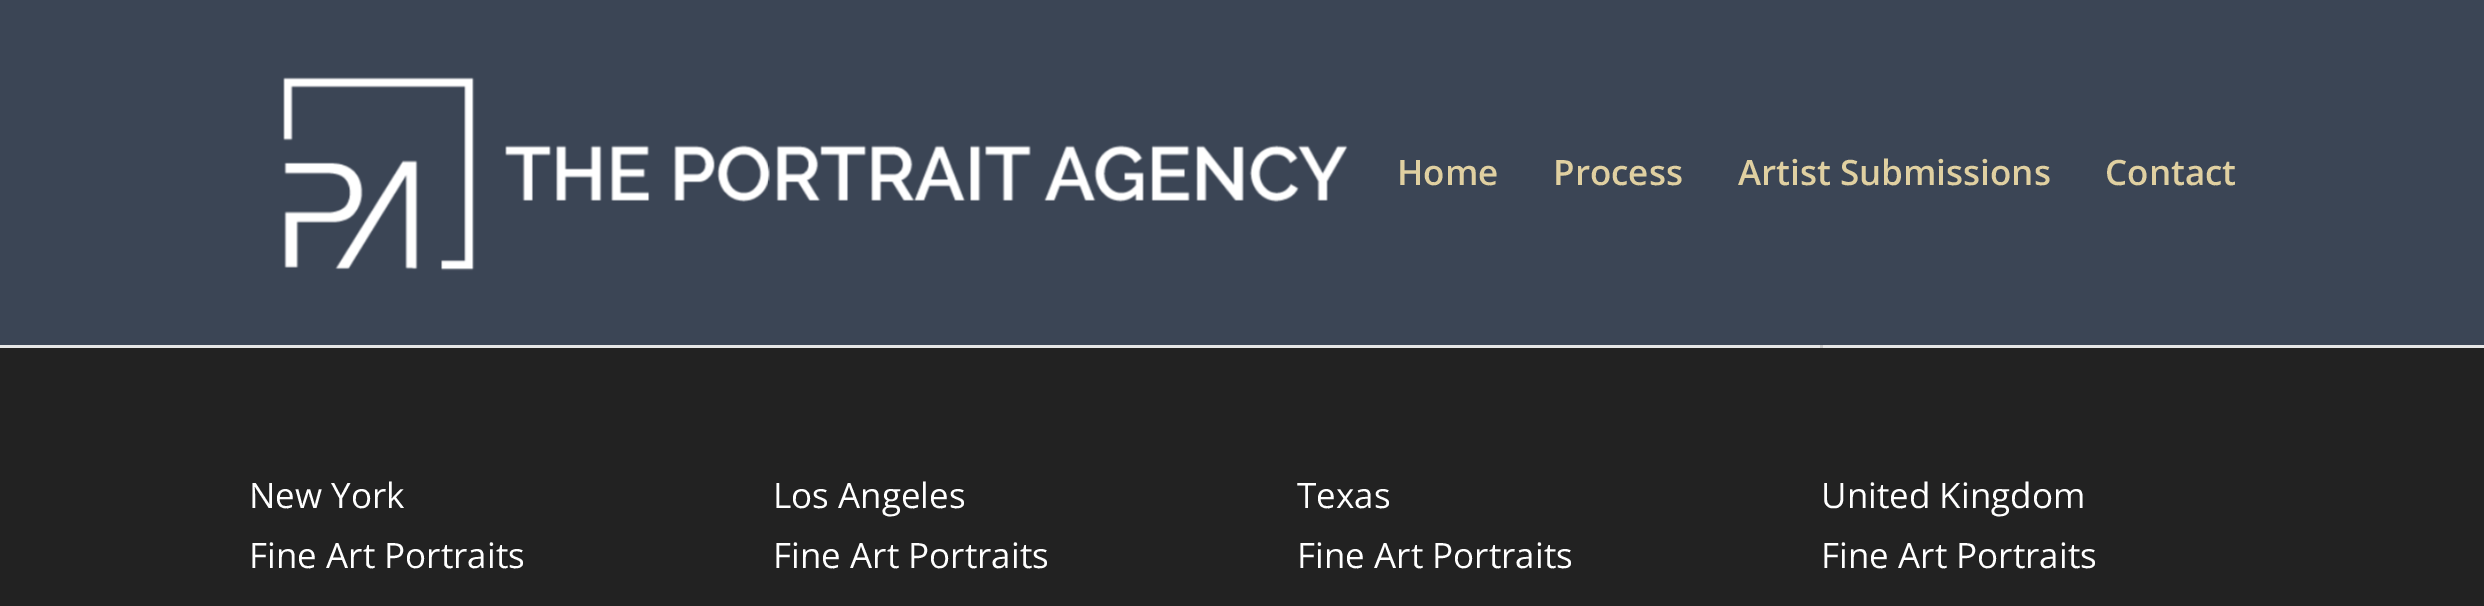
%!PS-Adobe-3.0
%%BoundingBox: 0 0 2484 606
%%LanguageLevel: 3
%%Pages: 1
%%EndComments
%%BeginProlog
/fn { [ exch dup neg 0 0 3 -1 roll 0 0 ] selectfont } def
/tx { moveto show } def
/bx { rectfill } def
/im { 5 dict begin { /h /w /y /x /name } { exch def } forall
  gsave x y translate w h scale
  w h 8 [w 0 0 h 0 0] name (r) file false 3 colorimage grestore end } def
%%EndProlog
%%BeginSetup
<< /PageSize [2484 606] >> setpagedevice
%%EndSetup
%%Page: 1 1
0 606 translate 1 -1 scale
4 setmiterlimit
0.902 setgray
0 0 2484 606 bx
0.231 0.271 0.333 setrgbcolor
0 0 2484 345 bx
(image0.raw) 283 77 1065 194 im
/OpenSans-SemiBold 35 fn
0.878 0.816 0.631 setrgbcolor
(Home) 1397 185 tx
(Process) 1553 185 tx
(Artist Submissions) 1738 185 tx
(Contact) 2105 185 tx
0.796 setgray
1820 345 3 3 bx
0.133 setgray
0 348 2484 258 bx
/OpenSans-Regular 35 fn
1 setgray
(New York) 249 508 tx
(Fine Art Portraits) 249 568 tx
(Los Angeles) 773 508 tx
(Fine Art Portraits) 773 568 tx
(Texas) 1297 508 tx
(Fine Art Portraits) 1297 568 tx
(United Kingdom) 1821 508 tx
(Fine Art Portraits) 1821 568 tx
showpage
%%EOF
